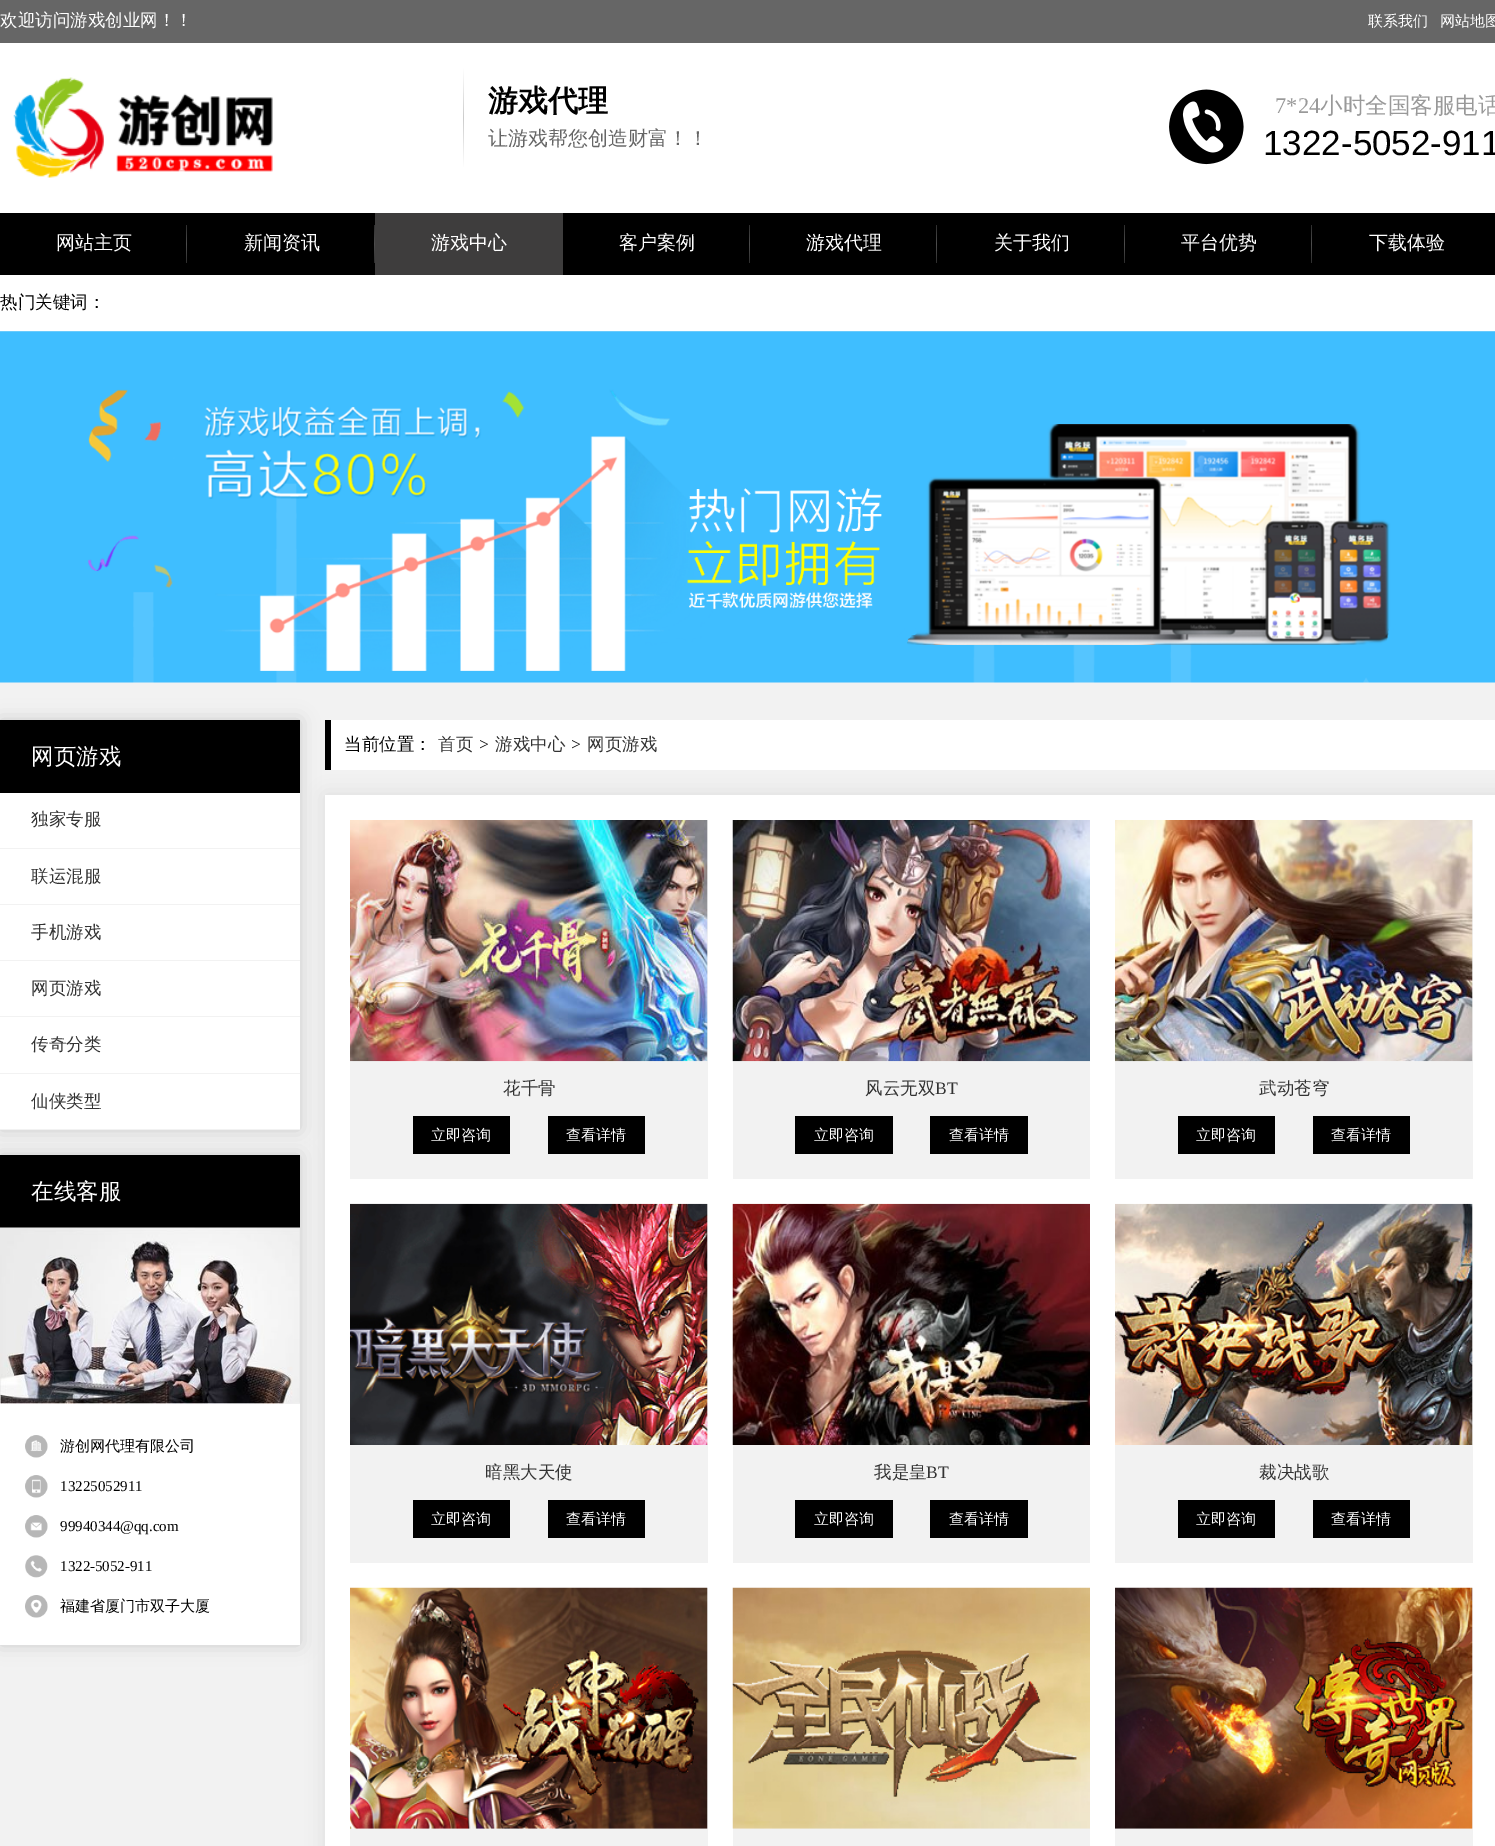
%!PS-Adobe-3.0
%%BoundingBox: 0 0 1495 1846
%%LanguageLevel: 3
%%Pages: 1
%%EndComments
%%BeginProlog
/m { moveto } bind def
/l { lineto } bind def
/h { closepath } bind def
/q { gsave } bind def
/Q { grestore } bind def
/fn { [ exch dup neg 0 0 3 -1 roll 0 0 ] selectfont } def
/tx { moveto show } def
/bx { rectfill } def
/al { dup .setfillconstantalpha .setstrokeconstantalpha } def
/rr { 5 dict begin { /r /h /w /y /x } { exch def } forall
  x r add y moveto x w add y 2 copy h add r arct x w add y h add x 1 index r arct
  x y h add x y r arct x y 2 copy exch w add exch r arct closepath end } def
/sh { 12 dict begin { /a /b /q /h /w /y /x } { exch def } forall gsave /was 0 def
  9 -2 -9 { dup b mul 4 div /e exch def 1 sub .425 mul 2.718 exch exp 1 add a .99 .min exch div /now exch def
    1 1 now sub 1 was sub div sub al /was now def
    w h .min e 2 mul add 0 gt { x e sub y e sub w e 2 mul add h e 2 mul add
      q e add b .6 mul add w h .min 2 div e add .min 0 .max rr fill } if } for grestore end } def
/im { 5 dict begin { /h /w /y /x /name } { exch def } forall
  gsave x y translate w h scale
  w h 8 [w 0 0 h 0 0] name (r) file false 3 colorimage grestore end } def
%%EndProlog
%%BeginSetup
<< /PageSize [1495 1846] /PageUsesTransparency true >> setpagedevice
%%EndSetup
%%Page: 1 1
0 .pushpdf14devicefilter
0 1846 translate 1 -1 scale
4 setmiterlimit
0.949 setgray
0 0 1495 1846 bx
0.4 setgray
0 0 1495 43 bx
/WenQuanYiZenHei-Medium 17.5 fn
1 setgray
(欢迎访问游戏创业网！！) 0 26 tx
/WenQuanYiZenHei-Medium 15 fn
(联系我们) 1368 26 tx
(网站地图) 1440 26 tx
0 43 1495 170 bx
(image0.raw) 13 77 260 101 im
q 463 68 m 464 68 l 464 168 l 463 168 l h clip newpath
<< /ShadingType 2 /ColorSpace /DeviceRGB /Coords [463 68 463 168] /Extend [true true] /Function << /FunctionType 3 /Domain [0 1] /Functions [<< /FunctionType 2 /Domain [0 1] /C0 [1 1 1] /C1 [0.8 0.8 0.8] /N 1 >> << /FunctionType 2 /Domain [0 1] /C0 [0.8 0.8 0.8] /C1 [1 1 1] /N 1 >>] /Bounds [0.5] /Encode [0 1 0 1] >> >> shfill Q
/WenQuanYiZenHei-Bold 30 fn
0 setgray
(游戏代理) 488 111 tx
/WenQuanYiZenHei-Medium 20 fn
0.4 setgray
(让游戏帮您创造财富！！) 488 145 tx
(image1.raw) 1169 89 75 76 im
/LiberationSerif-Regular 22.5 fn
0.6 setgray
(7*24) 1275 113 tx
/WenQuanYiZenHei-Medium 22.5 fn
(小时全国客服电话) 1320 113 tx
/LiberationSans-Regular 35 fn
0 setgray
(1322-5052-911) 1263 155 tx
0 213 1495 62 bx
/WenQuanYiZenHei-Medium 19 fn
1 setgray
(网站主页) 56 249 tx
q 186 225 m 187 225 l 187 263 l 186 263 l h clip newpath
<< /ShadingType 2 /ColorSpace /DeviceRGB /Coords [187 225 187 263] /Extend [true true] /Function << /FunctionType 3 /Domain [0 1] /Functions [<< /FunctionType 2 /Domain [0 1] /C0 [0.18 0.18 0.18] /C1 [0.302 0.302 0.302] /N 1 >> << /FunctionType 2 /Domain [0 1] /C0 [0.302 0.302 0.302] /C1 [0.18 0.18 0.18] /N 1 >>] /Bounds [0.5] /Encode [0 1 0 1] >> >> shfill Q
(新闻资讯) 244 249 tx
q 374 225 m 375 225 l 375 263 l 374 263 l h clip newpath
<< /ShadingType 2 /ColorSpace /DeviceRGB /Coords [374 225 374 263] /Extend [true true] /Function << /FunctionType 3 /Domain [0 1] /Functions [<< /FunctionType 2 /Domain [0 1] /C0 [0.18 0.18 0.18] /C1 [0.302 0.302 0.302] /N 1 >> << /FunctionType 2 /Domain [0 1] /C0 [0.302 0.302 0.302] /C1 [0.18 0.18 0.18] /N 1 >>] /Bounds [0.5] /Encode [0 1 0 1] >> >> shfill Q
0.243 0.239 0.239 setrgbcolor
375 213 188 62 bx
1 setgray
(游戏中心) 431 249 tx
(客户案例) 619 249 tx
q 749 225 m 750 225 l 750 263 l 749 263 l h clip newpath
<< /ShadingType 2 /ColorSpace /DeviceRGB /Coords [749 225 749 263] /Extend [true true] /Function << /FunctionType 3 /Domain [0 1] /Functions [<< /FunctionType 2 /Domain [0 1] /C0 [0.18 0.18 0.18] /C1 [0.302 0.302 0.302] /N 1 >> << /FunctionType 2 /Domain [0 1] /C0 [0.302 0.302 0.302] /C1 [0.18 0.18 0.18] /N 1 >>] /Bounds [0.5] /Encode [0 1 0 1] >> >> shfill Q
(游戏代理) 806 249 tx
q 936 225 m 937 225 l 937 263 l 936 263 l h clip newpath
<< /ShadingType 2 /ColorSpace /DeviceRGB /Coords [937 225 937 263] /Extend [true true] /Function << /FunctionType 3 /Domain [0 1] /Functions [<< /FunctionType 2 /Domain [0 1] /C0 [0.18 0.18 0.18] /C1 [0.302 0.302 0.302] /N 1 >> << /FunctionType 2 /Domain [0 1] /C0 [0.302 0.302 0.302] /C1 [0.18 0.18 0.18] /N 1 >>] /Bounds [0.5] /Encode [0 1 0 1] >> >> shfill Q
(关于我们) 994 249 tx
q 1124 225 m 1125 225 l 1125 263 l 1124 263 l h clip newpath
<< /ShadingType 2 /ColorSpace /DeviceRGB /Coords [1124 225 1124 263] /Extend [true true] /Function << /FunctionType 3 /Domain [0 1] /Functions [<< /FunctionType 2 /Domain [0 1] /C0 [0.18 0.18 0.18] /C1 [0.302 0.302 0.302] /N 1 >> << /FunctionType 2 /Domain [0 1] /C0 [0.302 0.302 0.302] /C1 [0.18 0.18 0.18] /N 1 >>] /Bounds [0.5] /Encode [0 1 0 1] >> >> shfill Q
(平台优势) 1181 249 tx
q 1311 225 m 1312 225 l 1312 263 l 1311 263 l h clip newpath
<< /ShadingType 2 /ColorSpace /DeviceRGB /Coords [1312 225 1312 263] /Extend [true true] /Function << /FunctionType 3 /Domain [0 1] /Functions [<< /FunctionType 2 /Domain [0 1] /C0 [0.18 0.18 0.18] /C1 [0.302 0.302 0.302] /N 1 >> << /FunctionType 2 /Domain [0 1] /C0 [0.302 0.302 0.302] /C1 [0.18 0.18 0.18] /N 1 >>] /Bounds [0.5] /Encode [0 1 0 1] >> >> shfill Q
(下载体验) 1369 249 tx
0 275 1495 56 bx
/WenQuanYiZenHei-Medium 17.5 fn
0 setgray
(热门关键词：) 0 308 tx
(image2.raw) 0 331 1495 352 im
0.8 setgray
0 720 300 410 0 9.5 1 sh
1 setgray
0 793 300 336 bx
0 setgray
0 720 300 73 bx
/WenQuanYiZenHei-Medium 22.5 fn
1 setgray
(网页游戏) 31 764 tx
0.8 setgray
0 1155 300 490 0 9.5 1 sh
1 setgray
0 1403 300 242 bx
0 setgray
0 1155 300 73 bx
(image3.raw) 0 1227 300 177 im
1 setgray
331 720 1164 50 bx
0 setgray
325 720 6 50 bx
0.867 setgray
325 795 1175 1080 0 9.5 1 sh
0.949 setgray
0 848 300 1 bx
/WenQuanYiZenHei-Medium 17.5 fn
0.2 setgray
(独家专服) 31 825 tx
0.949 setgray
0 904 300 1 bx
0.2 setgray
(联运混服) 31 882 tx
0.949 setgray
0 960 300 1 bx
0.2 setgray
(手机游戏) 31 938 tx
0.949 setgray
0 1016 300 1 bx
0.2 setgray
(网页游戏) 31 994 tx
0.949 setgray
0 1073 300 1 bx
0.2 setgray
(传奇分类) 31 1050 tx
0.949 setgray
0 1129 300 1 bx
0.2 setgray
(仙侠类型) 31 1107 tx
/WenQuanYiZenHei-Medium 22.5 fn
1 setgray
(在线客服) 31 1199 tx
(image4.raw) 25 1435 23 23 im
/WenQuanYiZenHei-Medium 15 fn
0 setgray
(游创网代理有限公司) 60 1451 tx
(image5.raw) 25 1475 23 23 im
/LiberationSerif-Regular 15 fn
(13225052911) 60 1491 tx
(image6.raw) 25 1515 23 23 im
(99940344@qq.com) 60 1531 tx
(image7.raw) 25 1555 23 23 im
(1322-5052-911) 60 1571 tx
(image8.raw) 25 1595 23 23 im
/WenQuanYiZenHei-Medium 15 fn
(福建省厦门市双子大厦) 60 1611 tx
/WenQuanYiZenHei-Medium 17.5 fn
(当前位置：) 344 750 tx
0.2 setgray
(首页) 438 750 tx
/LiberationSerif-Regular 17.5 fn
0 setgray
(>) 479 750 tx
/WenQuanYiZenHei-Medium 17.5 fn
0.2 setgray
(游戏中心) 495 750 tx
/LiberationSerif-Regular 17.5 fn
0 setgray
(>) 571 750 tx
/WenQuanYiZenHei-Medium 17.5 fn
0.2 setgray
(网页游戏) 587 750 tx
1 setgray
325 795 1170 1051 bx
0.949 setgray
350 820 358 359 bx
(image9.raw) 350 820 358 242 im
0.2 setgray
(花千骨) 503 1094 tx
0 setgray
413 1116 97 38 bx
/WenQuanYiZenHei-Medium 15 fn
1 setgray
(立即咨询) 431 1140 tx
0 setgray
548 1116 97 38 bx
1 setgray
(查看详情) 566 1140 tx
0.949 setgray
733 1061 357 118 bx
(image10.raw) 732 820 358 242 im
/WenQuanYiZenHei-Medium 17.5 fn
0.2 setgray
(风云无双) 865 1094 tx
/LiberationSerif-Regular 17.5 fn
(BT) 935 1094 tx
0 setgray
795 1116 98 38 bx
/WenQuanYiZenHei-Medium 15 fn
1 setgray
(立即咨询) 814 1140 tx
0 setgray
930 1116 98 38 bx
1 setgray
(查看详情) 949 1140 tx
0.949 setgray
1115 820 358 359 bx
(image11.raw) 1115 820 358 242 im
/WenQuanYiZenHei-Medium 17.5 fn
0.2 setgray
(武动苍穹) 1259 1094 tx
0 setgray
1178 1116 97 38 bx
/WenQuanYiZenHei-Medium 15 fn
1 setgray
(立即咨询) 1196 1140 tx
0 setgray
1313 1116 97 38 bx
1 setgray
(查看详情) 1331 1140 tx
0.949 setgray
350 1204 358 359 bx
(image12.raw) 350 1203 358 242 im
/WenQuanYiZenHei-Medium 17.5 fn
0.2 setgray
(暗黑大天使) 485 1478 tx
0 setgray
413 1500 97 38 bx
/WenQuanYiZenHei-Medium 15 fn
1 setgray
(立即咨询) 431 1524 tx
0 setgray
548 1500 97 38 bx
1 setgray
(查看详情) 566 1524 tx
0.949 setgray
733 1445 357 118 bx
(image13.raw) 732 1203 358 242 im
/WenQuanYiZenHei-Medium 17.5 fn
0.2 setgray
(我是皇) 874 1478 tx
/LiberationSerif-Regular 17.5 fn
(BT) 926 1478 tx
0 setgray
795 1500 98 38 bx
/WenQuanYiZenHei-Medium 15 fn
1 setgray
(立即咨询) 814 1524 tx
0 setgray
930 1500 98 38 bx
1 setgray
(查看详情) 949 1524 tx
0.949 setgray
1115 1204 358 359 bx
(image14.raw) 1115 1203 358 242 im
/WenQuanYiZenHei-Medium 17.5 fn
0.2 setgray
(裁决战歌) 1259 1478 tx
0 setgray
1178 1500 97 38 bx
/WenQuanYiZenHei-Medium 15 fn
1 setgray
(立即咨询) 1196 1524 tx
0 setgray
1313 1500 97 38 bx
1 setgray
(查看详情) 1331 1524 tx
0.949 setgray
350 1588 358 258 bx
(image15.raw) 350 1587 358 242 im
733 1828 357 18 bx
(image16.raw) 732 1587 358 242 im
1115 1588 358 258 bx
(image17.raw) 1115 1587 358 242 im
.poppdf14devicefilter showpage
%%EOF
